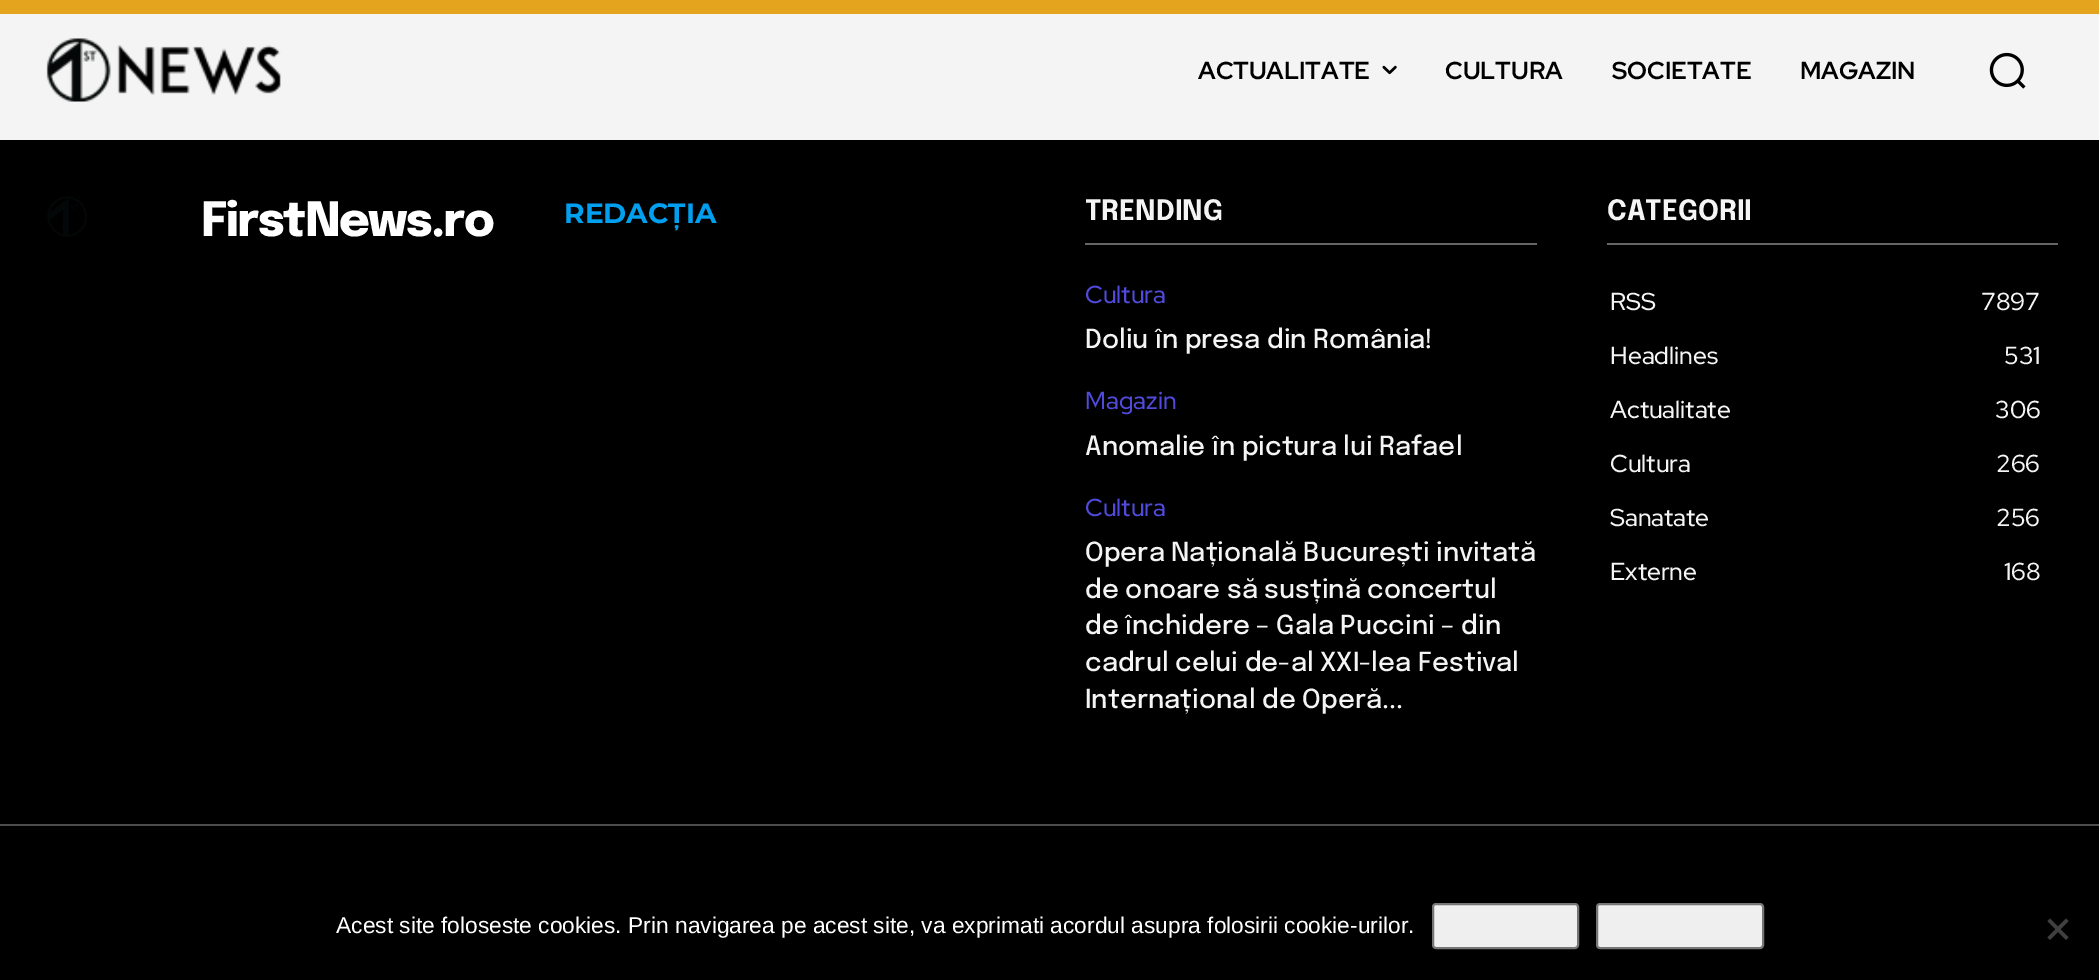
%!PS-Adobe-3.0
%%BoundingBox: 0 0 2099 980
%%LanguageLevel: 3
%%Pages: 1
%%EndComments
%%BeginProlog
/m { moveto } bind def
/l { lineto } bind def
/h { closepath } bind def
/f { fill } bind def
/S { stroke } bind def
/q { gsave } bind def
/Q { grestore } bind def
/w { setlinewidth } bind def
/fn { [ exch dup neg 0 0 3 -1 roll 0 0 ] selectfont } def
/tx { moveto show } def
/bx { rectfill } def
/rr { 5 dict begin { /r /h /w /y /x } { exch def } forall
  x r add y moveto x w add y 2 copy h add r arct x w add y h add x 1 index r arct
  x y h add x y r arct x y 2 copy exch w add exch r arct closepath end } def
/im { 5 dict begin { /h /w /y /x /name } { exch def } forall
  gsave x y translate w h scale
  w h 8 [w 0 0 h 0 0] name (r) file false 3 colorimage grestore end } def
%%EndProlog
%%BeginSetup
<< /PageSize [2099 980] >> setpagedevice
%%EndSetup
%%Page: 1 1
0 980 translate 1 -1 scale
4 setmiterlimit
0 setgray
0 0 2099 980 bx
0.894 0.643 0.118 setrgbcolor
0 0 2099 14 bx
0.957 setgray
0 14 2099 126 bx
(image0.raw) 46 38 235 64 im
/RedHatDisplay-Bold 24.5 fn
0 setgray
(ACTUALITATE) 1198 79 tx
(image1.raw) 1382 65 15 10 im
(CULTURA) 1445 79 tx
(SOCIETATE) 1612 79 tx
(MAGAZIN) 1800 79 tx
(image2.raw) 1989 52 37 37 im
(image3.raw) 47 196 40 41 im
/Epilogue-ExtraBold 47.25 fn
1 setgray
201 236 m -1.75 0 (FirstNews.ro) ashow
/Montserrat-Bold 28 fn
0 0.624 0.937 setrgbcolor
(REDACȚIA) 564 223 tx
0.4 setgray
1085 243 452 2 bx
/Epilogue-Bold 28 fn
0.957 setgray
(TRENDING) 1085 220 tx
/RedHatDisplay-Medium 24.5 fn
0.314 0.294 0.863 setrgbcolor
(Cultura) 1085 303 tx
/Epilogue-Medium 26.25 fn
0.957 setgray
(Doliu în presa din România!) 1085 348 tx
/RedHatDisplay-Medium 24.5 fn
0.314 0.294 0.863 setrgbcolor
(Magazin) 1085 409 tx
/Epilogue-Medium 26.25 fn
0.957 setgray
(Anomalie în pictura lui Rafael) 1085 455 tx
/RedHatDisplay-Medium 24.5 fn
0.314 0.294 0.863 setrgbcolor
(Cultura) 1085 516 tx
/Epilogue-Medium 26.25 fn
0.957 setgray
(Opera Națională București invitată) 1085 561 tx
(de onoare să susțină concertul) 1085 598 tx
(de închidere – Gala Puccini – din) 1085 634 tx
(cadrul celui de-al XXI-lea Festival) 1085 671 tx
(Internațional de Operă...) 1085 708 tx
0.4 setgray
1607 243 451 2 bx
/Epilogue-Bold 28 fn
0.957 setgray
(CATEGORII) 1607 220 tx
/RedHatDisplay-Medium 24.5 fn
(RSS) 1610 310 tx
(7897) 1981 310 tx
(Headlines) 1610 364 tx
(531) 2004 364 tx
(Actualitate) 1610 418 tx
(306) 1995 418 tx
(Cultura) 1610 472 tx
(266) 1996 472 tx
(Sanatate) 1610 526 tx
(256) 1996 526 tx
(Externe) 1610 580 tx
(168) 2004 580 tx
0.302 setgray
0 824 2099 2 bx
/LiberationSans-Regular 22.75 fn
1 setgray
(Acest site foloseste cookies. Prin navigarea pe acest site, va exprimati acordul asupra folosirii cookie-urilor.) 336 933 tx
0.937 setgray
1433 904 145 44 3 rr q f Q
0.463 setgray
2 w
S
0.937 setgray
1597 904 166 44 3 rr q f Q
0.463 setgray
S
0.251 setgray
2066 918.5 m 2068.5 921 l 2050 940 l 2047.5 937.5 l h f
2047.5 921 m 2050 918.5 l 2068.5 937.5 l 2066 940 l h f
showpage
%%EOF
